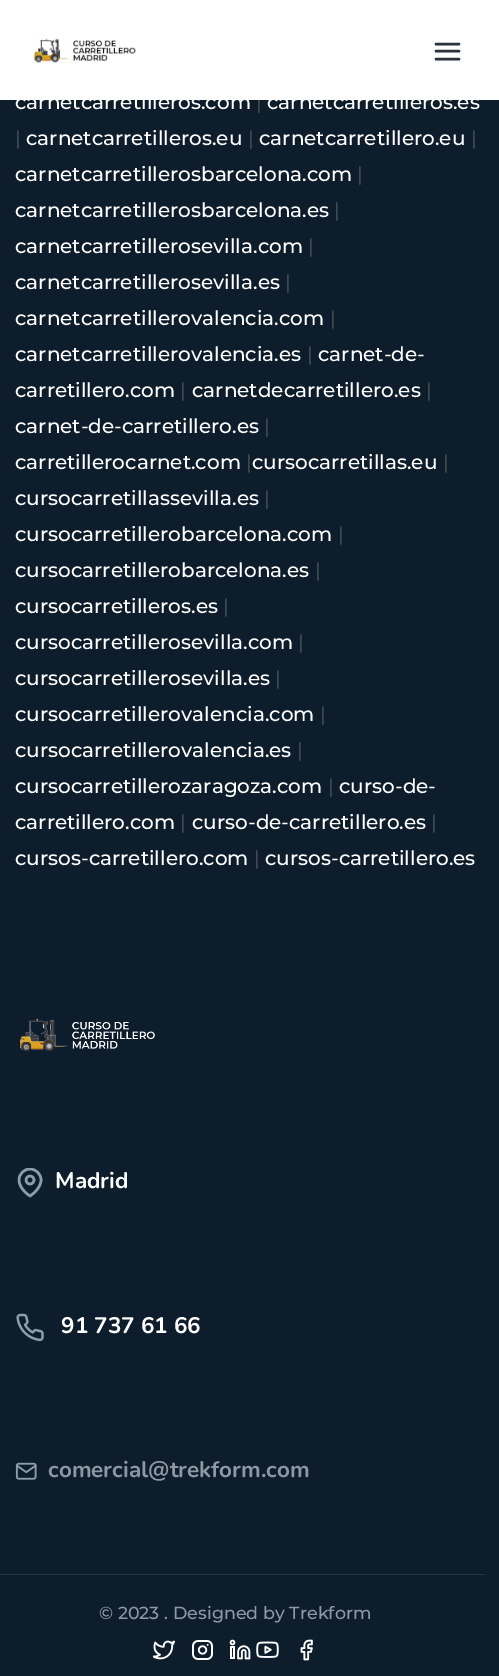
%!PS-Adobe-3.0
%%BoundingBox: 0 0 499 1676
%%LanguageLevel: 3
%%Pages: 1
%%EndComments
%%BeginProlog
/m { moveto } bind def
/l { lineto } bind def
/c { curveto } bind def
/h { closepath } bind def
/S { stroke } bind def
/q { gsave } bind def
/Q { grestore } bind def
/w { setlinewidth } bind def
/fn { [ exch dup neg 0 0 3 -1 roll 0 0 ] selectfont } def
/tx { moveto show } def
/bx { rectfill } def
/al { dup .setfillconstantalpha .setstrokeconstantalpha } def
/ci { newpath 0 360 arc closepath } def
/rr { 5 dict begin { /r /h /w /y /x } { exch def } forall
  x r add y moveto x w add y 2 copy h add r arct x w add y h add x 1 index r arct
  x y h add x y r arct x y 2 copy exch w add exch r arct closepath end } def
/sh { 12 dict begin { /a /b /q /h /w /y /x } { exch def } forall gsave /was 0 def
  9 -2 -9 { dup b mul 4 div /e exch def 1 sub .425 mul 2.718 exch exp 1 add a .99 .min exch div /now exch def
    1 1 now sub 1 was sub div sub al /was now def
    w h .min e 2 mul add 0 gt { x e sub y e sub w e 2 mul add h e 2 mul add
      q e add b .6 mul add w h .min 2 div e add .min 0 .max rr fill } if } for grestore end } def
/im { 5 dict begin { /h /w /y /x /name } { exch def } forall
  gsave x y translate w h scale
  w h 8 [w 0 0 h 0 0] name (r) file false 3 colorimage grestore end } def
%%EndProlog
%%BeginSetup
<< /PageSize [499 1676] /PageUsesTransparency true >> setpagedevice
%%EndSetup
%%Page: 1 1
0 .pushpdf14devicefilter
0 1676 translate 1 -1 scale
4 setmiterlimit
0.055 0.114 0.173 setrgbcolor
0 0 499 1676 bx
0 setgray
0 3 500 100 0 2.5 0.07 sh
/Montserrat-Medium 20 fn
0.239 0.282 0.322 setrgbcolor
(|) 256 109 tx
1 setgray
0 0 499 100 bx
(image0.raw) 33 38 103 25 im
0.173 0.2 0.227 setrgbcolor
2.5 w
1 setlinecap
1 setlinejoin
436 51 m 459 51 l 436 44 m 459 44 l 436 59 m 459 59 l S
1 setgray
(carnetcarretilleros.com) 15 109 tx
(carnetcarretilleros.es) 267 109 tx
0.239 0.282 0.322 setrgbcolor
(|) 15 145 tx
1 setgray
(carnetcarretilleros.eu) 26 145 tx
0.239 0.282 0.322 setrgbcolor
(|) 248 145 tx
1 setgray
(carnetcarretillero.eu) 259 145 tx
0.239 0.282 0.322 setrgbcolor
(|) 471 145 tx
1 setgray
(carnetcarretillerosbarcelona.com) 15 181 tx
0.239 0.282 0.322 setrgbcolor
(|) 357 181 tx
1 setgray
(carnetcarretillerosbarcelona.es) 15 217 tx
0.239 0.282 0.322 setrgbcolor
(|) 334 217 tx
1 setgray
(carnetcarretillerosevilla.com) 15 253 tx
0.239 0.282 0.322 setrgbcolor
(|) 308 253 tx
1 setgray
(carnetcarretillerosevilla.es) 15 289 tx
0.239 0.282 0.322 setrgbcolor
(|) 285 289 tx
1 setgray
(carnetcarretillerovalencia.com) 15 325 tx
0.239 0.282 0.322 setrgbcolor
(|) 330 325 tx
1 setgray
(carnetcarretillerovalencia.es) 15 361 tx
0.239 0.282 0.322 setrgbcolor
(|) 307 361 tx
1 setgray
(carnet-de-) 318 361 tx
(carretillero.com) 15 397 tx
0.239 0.282 0.322 setrgbcolor
(|) 180 397 tx
1 setgray
(carnetdecarretillero.es) 192 397 tx
0.239 0.282 0.322 setrgbcolor
(|) 426 397 tx
1 setgray
(carnet-de-carretillero.es) 15 433 tx
0.239 0.282 0.322 setrgbcolor
(|) 264 433 tx
1 setgray
(carretillerocarnet.com) 15 469 tx
0.239 0.282 0.322 setrgbcolor
(|) 246 469 tx
1 setgray
(cursocarretillas.eu) 252 469 tx
0.239 0.282 0.322 setrgbcolor
(|) 443 469 tx
1 setgray
(cursocarretillassevilla.es) 15 505 tx
0.239 0.282 0.322 setrgbcolor
(|) 264 505 tx
1 setgray
(cursocarretillerobarcelona.com) 15 541 tx
0.239 0.282 0.322 setrgbcolor
(|) 338 541 tx
1 setgray
(cursocarretillerobarcelona.es) 15 577 tx
0.239 0.282 0.322 setrgbcolor
(|) 315 577 tx
1 setgray
(cursocarretilleros.es) 15 613 tx
0.239 0.282 0.322 setrgbcolor
(|) 223 613 tx
1 setgray
(cursocarretillerosevilla.com) 15 649 tx
0.239 0.282 0.322 setrgbcolor
(|) 298 649 tx
1 setgray
(cursocarretillerosevilla.es) 15 685 tx
0.239 0.282 0.322 setrgbcolor
(|) 275 685 tx
1 setgray
(cursocarretillerovalencia.com) 15 721 tx
0.239 0.282 0.322 setrgbcolor
(|) 320 721 tx
1 setgray
(cursocarretillerovalencia.es) 15 757 tx
0.239 0.282 0.322 setrgbcolor
(|) 297 757 tx
1 setgray
(cursocarretillerozaragoza.com) 15 793 tx
0.239 0.282 0.322 setrgbcolor
(|) 328 793 tx
1 setgray
(curso-de-) 339 793 tx
(carretillero.com) 15 829 tx
0.239 0.282 0.322 setrgbcolor
(|) 180 829 tx
1 setgray
(curso-de-carretillero.es) 192 829 tx
0.239 0.282 0.322 setrgbcolor
(|) 431 829 tx
1 setgray
(cursos-carretillero.com) 15 865 tx
0.239 0.282 0.322 setrgbcolor
(|) 254 865 tx
1 setgray
(cursos-carretillero.es) 265 865 tx
(image1.raw) 20 1019 135 33 im
q
15 1168 30 30 rectclip
0.557 0.616 0.671 setrgbcolor
41 1180 m 41 1189 30 1196 30 1196 c 30 1196 19 1189 19 1180 c 19 1174 24 1169 30 1169 c 36 1169 41 1174 41 1180 c h S
Q
/Nunito-Bold 22.5 fn
(Madrid) 55 1188 tx
0.557 0.616 0.671 setrgbcolor
0 setlinecap
0 setlinejoin
30 1180 4 ci S
(image2.raw) 16 1313 28 29 im
1 setgray
(91 737 61 66) 61 1333 tx
(image3.raw) 15 1462 22 18 im
0.557 0.596 0.635 setrgbcolor
(comercial@trekform.com) 48 1477 tx
0.149 0.204 0.255 setrgbcolor
0 1574 485 1 bx
/Montserrat-Medium 17.5 fn
0.557 0.596 0.635 setrgbcolor
(© 2023 . Designed by Trekform) 99 1619 tx
(image4.raw) 153 1640 22 20 im
(image5.raw) 192 1640 21 20 im
(image6.raw) 229 1639 22 21 im
(image7.raw) 256 1641 23 17 im
(image8.raw) 300 1639 13 22 im
.poppdf14devicefilter showpage
%%EOF
